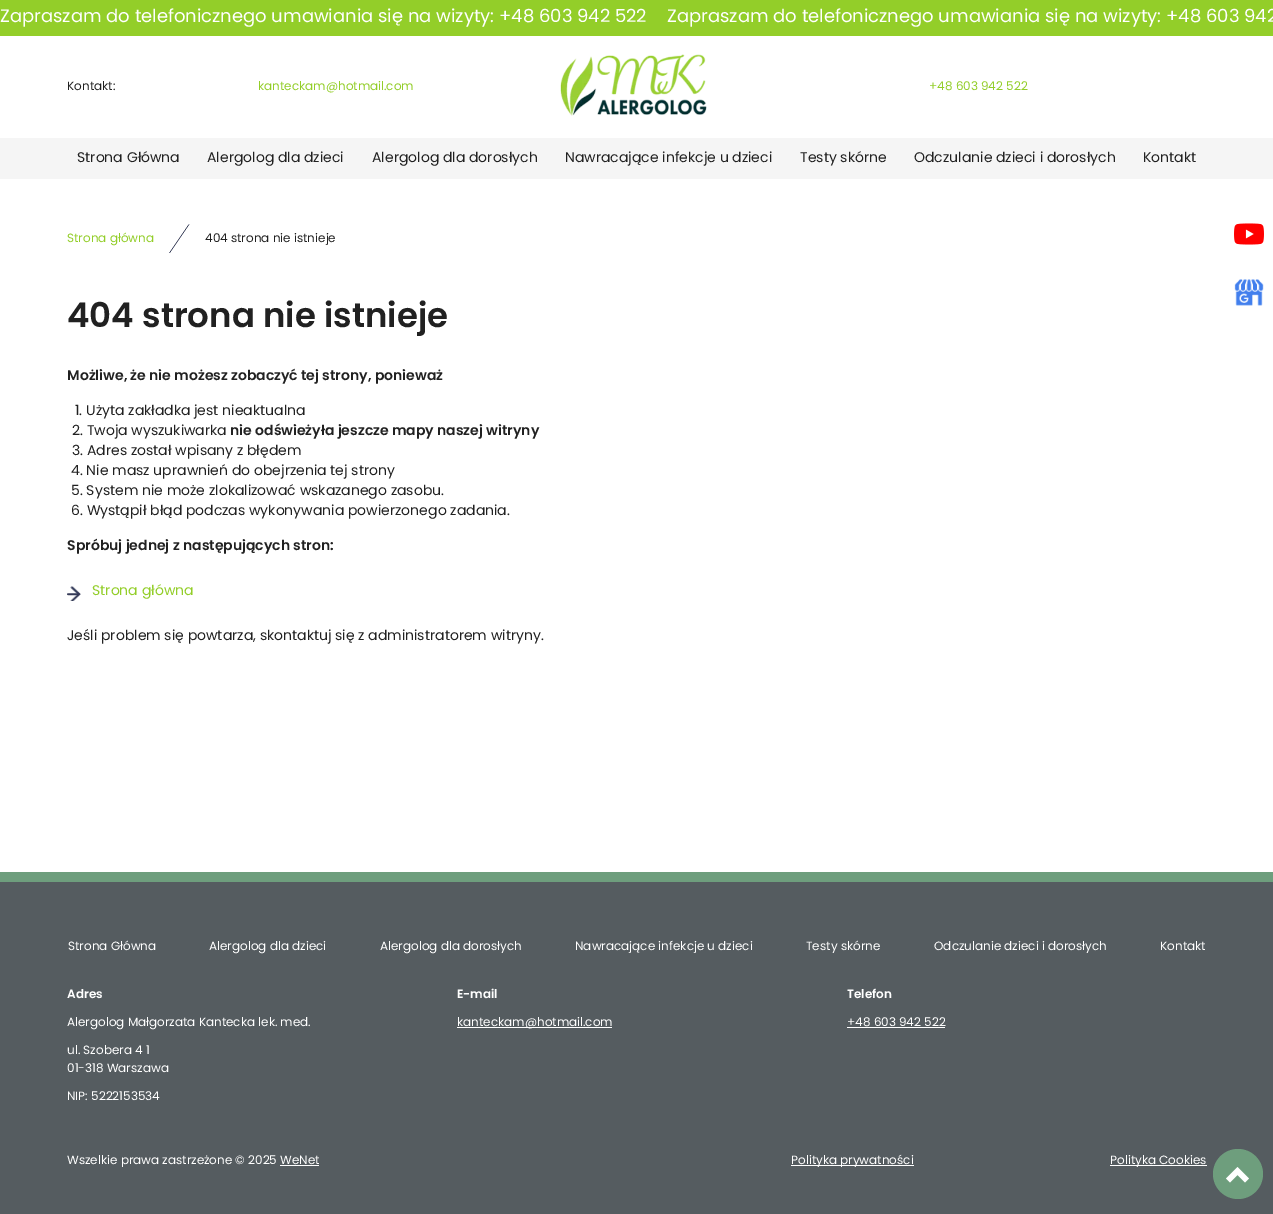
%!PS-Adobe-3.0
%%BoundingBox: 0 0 1273 1214
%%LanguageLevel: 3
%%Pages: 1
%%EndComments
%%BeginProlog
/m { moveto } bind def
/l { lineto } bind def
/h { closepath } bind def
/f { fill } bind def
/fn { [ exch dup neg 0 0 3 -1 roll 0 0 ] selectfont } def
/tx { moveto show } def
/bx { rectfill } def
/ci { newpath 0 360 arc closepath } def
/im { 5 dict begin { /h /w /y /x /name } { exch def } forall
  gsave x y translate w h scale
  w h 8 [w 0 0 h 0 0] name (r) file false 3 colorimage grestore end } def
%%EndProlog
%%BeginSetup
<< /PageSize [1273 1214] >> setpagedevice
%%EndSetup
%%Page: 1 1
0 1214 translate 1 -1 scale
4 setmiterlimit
1 setgray
0 0 1273 1214 bx
0.576 0.808 0.161 setrgbcolor
0 0 1273 36 bx
/Poppins-Regular 18 fn
1 setgray
(Zapraszam do telefonicznego umawiania się na wizyty: +48 603 942 522) 0 22 tx
(Zapraszam do telefonicznego umawiania się na wizyty: +48 603 942) 667 22 tx
/Poppins-Regular 12 fn
0.129 setgray
(Kontakt:) 67 90 tx
0.576 0.808 0.161 setrgbcolor
(kanteckam@hotmail.com) 258 90 tx
(image0.raw) 560 54 147 62 im
(+48 603 942 522) 929 90 tx
0.961 setgray
0 138 1273 41 bx
/Poppins-Regular 14 fn
0.129 setgray
(Strona Główna) 77 162 tx
(Alergolog dla dzieci) 207 162 tx
(Alergolog dla dorosłych) 372 162 tx
(Nawracające infekcje u dzieci) 565 162 tx
(Testy skórne) 800 162 tx
(Odczulanie dzieci i dorosłych) 914 162 tx
(Kontakt) 1143 162 tx
/Poppins-Regular 12 fn
0.576 0.808 0.161 setrgbcolor
(Strona główna) 67 242 tx
(image1.raw) 169 224 21 29 im
0.129 setgray
(404 strona nie istnieje) 205 242 tx
/Poppins-SemiBold 34 fn
(404 strona nie istnieje) 67 327 tx
/Poppins-SemiBold 14 fn
(Możliwe, że nie możesz zobaczyć tej strony, ponieważ) 67 380 tx
/Poppins-Regular 14 fn
(1. Użyta zakładka jest nieaktualna) 75 415 tx
(2. Twoja wyszukiwarka) 72 435 tx
/Poppins-SemiBold 14 fn
(nie odświeżyła jeszcze mapy naszej witryny) 230 435 tx
/Poppins-Regular 14 fn
(3. Adres został wpisany z błędem) 72 455 tx
(4. Nie masz uprawnień do obejrzenia tej strony) 71 475 tx
(5. System nie może zlokalizować wskazanego zasobu.) 71 495 tx
(6. Wystąpił błąd podczas wykonywania powierzonego zadania.) 71 515 tx
/Poppins-SemiBold 14 fn
(Spróbuj jednej z następujących stron:) 67 550 tx
(image2.raw) 67 586 14 15 im
/Poppins-Regular 14 fn
0.576 0.808 0.161 setrgbcolor
(Strona główna) 92 595 tx
0.129 setgray
(Jeśli problem się powtarza, skontaktuj się z administratorem witryny.) 67 640 tx
(image3.raw) 1234 223 30 22 im
(image4.raw) 1234 279 30 27 im
0.333 0.361 0.376 setrgbcolor
0 882 1273 332 bx
0.431 0.62 0.49 setrgbcolor
0 872 1273 10 bx
/Poppins-Regular 12 fn
1 setgray
(Strona Główna) 68 950 tx
(Alergolog dla dzieci) 209 950 tx
(Alergolog dla dorosłych) 380 950 tx
(Nawracające infekcje u dzieci) 575 950 tx
(Testy skórne) 806 950 tx
(Odczulanie dzieci i dorosłych) 934 950 tx
(Kontakt) 1160 950 tx
/Poppins-SemiBold 12 fn
(Adres) 67 998 tx
/Poppins-Regular 12 fn
(Alergolog Małgorzata Kantecka lek. med.) 67 1026 tx
(ul. Szobera 4 1) 67 1054 tx
(01-318 Warszawa) 67 1072 tx
(NIP: 5222153534) 67 1100 tx
/Poppins-SemiBold 12 fn
(E-mail) 457 998 tx
457 1027 155 1 bx
/Poppins-Regular 12 fn
(kanteckam@hotmail.com) 457 1026 tx
/Poppins-SemiBold 12 fn
(Telefon) 847 998 tx
/Poppins-Regular 12 fn
(+48 603 942 522) 847 1026 tx
847 1027 98 1 bx
(Wszelkie prawa zastrzeżone © 2025 WeNet) 67 1164 tx
280 1165 39 1 bx
791 1165 123 1 bx
(Polityka prywatności) 791 1164 tx
1110 1165 97 1 bx
(Polityka Cookies) 1110 1164 tx
0.431 0.62 0.49 setrgbcolor
1238 1174 25 ci f
1 setgray
1249 1178.5 m 1245 1182.5 l 1237.5 1175 l 1230 1182.5 l 1226 1178.5 l 1237.5 1167 l h f
showpage
%%EOF
